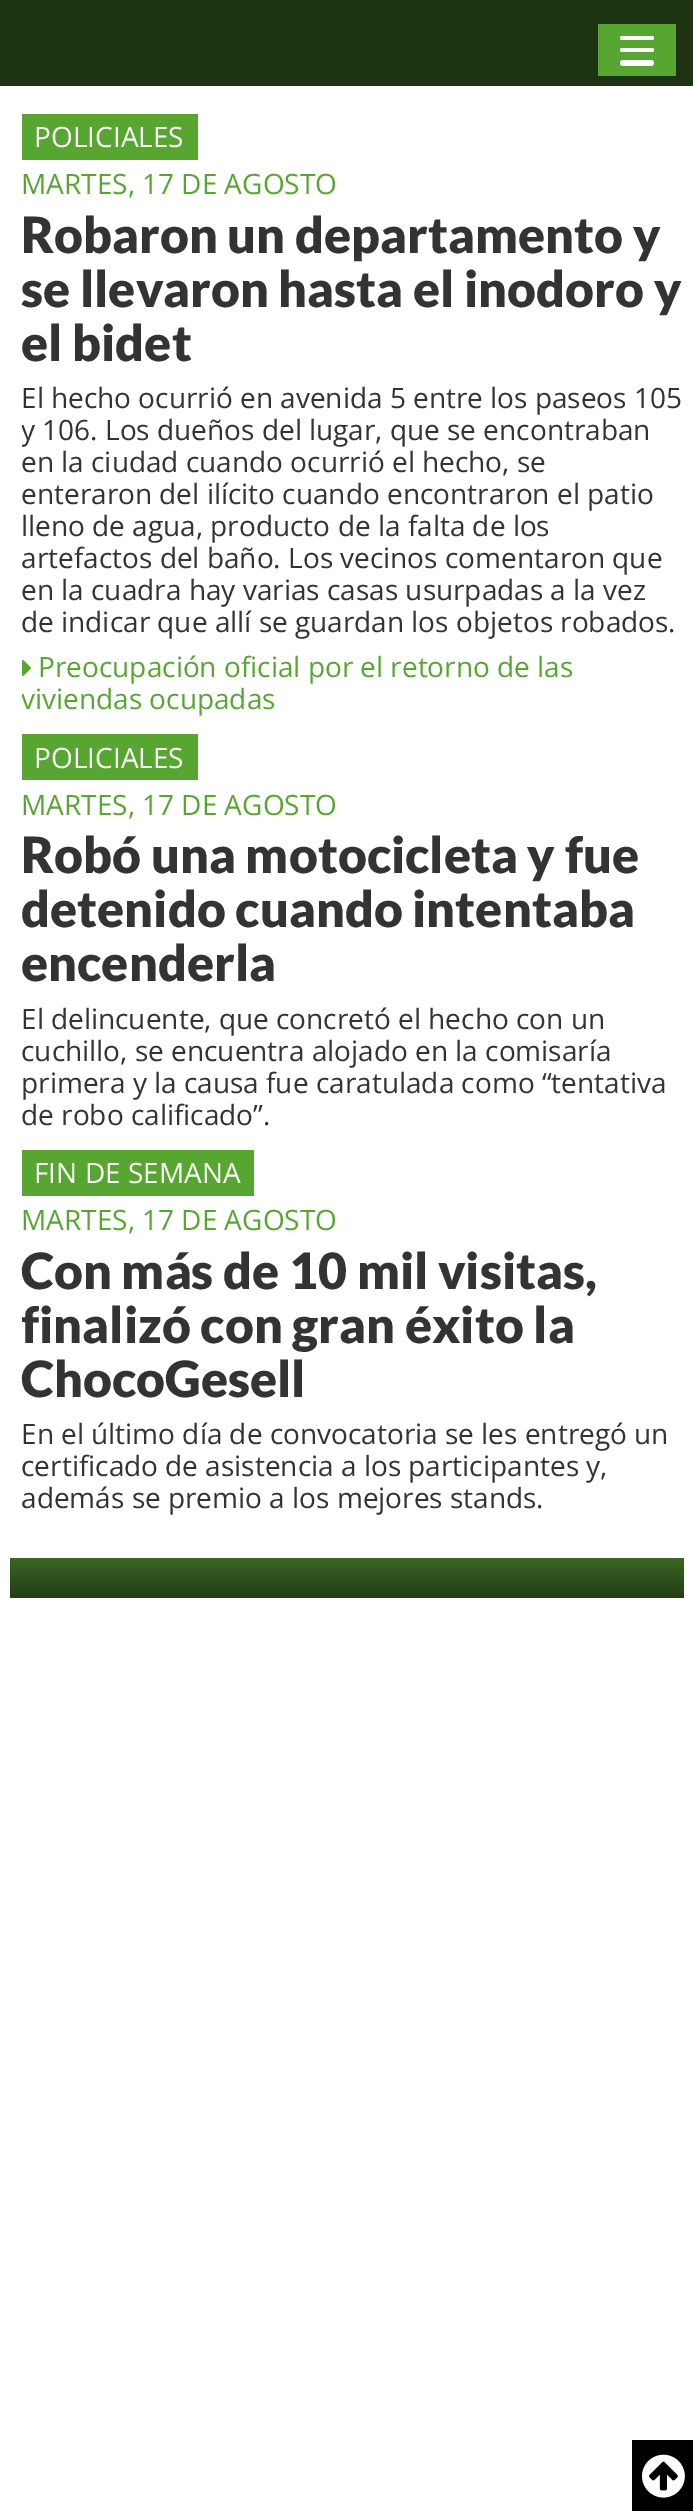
%!PS-Adobe-3.0
%%BoundingBox: 0 0 693 2511
%%LanguageLevel: 3
%%Pages: 1
%%EndComments
%%BeginProlog
/m { moveto } bind def
/l { lineto } bind def
/h { closepath } bind def
/f { fill } bind def
/q { gsave } bind def
/Q { grestore } bind def
/fn { [ exch dup neg 0 0 3 -1 roll 0 0 ] selectfont } def
/tx { moveto show } def
/bx { rectfill } def
/rr { 5 dict begin { /r /h /w /y /x } { exch def } forall
  x r add y moveto x w add y 2 copy h add r arct x w add y h add x 1 index r arct
  x y h add x y r arct x y 2 copy exch w add exch r arct closepath end } def
/im { 5 dict begin { /h /w /y /x /name } { exch def } forall
  gsave x y translate w h scale
  w h 8 [w 0 0 h 0 0] name (r) file false 3 colorimage grestore end } def
%%EndProlog
%%BeginSetup
<< /PageSize [693 2511] >> setpagedevice
%%EndSetup
%%Page: 1 1
0 2511 translate 1 -1 scale
4 setmiterlimit
1 setgray
0 0 693 2511 bx
0.114 0.2 0.067 setrgbcolor
0 0 693 86 bx
0.345 0.651 0.196 setrgbcolor
598 24 78 52 bx
1 setgray
620 36 34 4 2 rr f
620 48 34 4 2 rr f
620 60 34 6 3 rr f
0 setgray
632 2440 61 71 bx
(image0.raw) 642 2454 43 44 im
0.345 0.651 0.196 setrgbcolor
22 114 176 46 bx
/OpenSans-Regular 28 fn
1 setgray
(POLICIALES) 34 147 tx
0.345 0.651 0.196 setrgbcolor
(MARTES, 17 DE AGOSTO) 21 194 tx
/Lato-Black 50 fn
0.2 setgray
(Robaron un departamento y) 21 253 tx
(se llevaron hasta el inodoro y) 21 307 tx
(el bidet) 21 361 tx
/OpenSans-Regular 28 fn
(El hecho ocurrió en avenida 5 entre los paseos 105) 21 408 tx
q
22 100 662 1434 rectclip
(y 106. Los dueños del lugar, que se encontraban) 21 440 tx
Q
(en la ciudad cuando ocurrió el hecho, se) 21 472 tx
(enteraron del ilícito cuando encontraron el patio) 21 504 tx
(lleno de agua, producto de la falta de los) 21 536 tx
(artefactos del baño. Los vecinos comentaron que) 21 568 tx
(en la cuadra hay varias casas usurpadas a la vez) 21 600 tx
(de indicar que allí se guardan los objetos robados.) 21 632 tx
(image1.raw) 22 660 9 16 im
0.345 0.651 0.196 setrgbcolor
(Preocupación oficial por el retorno de las) 38 677 tx
q
22 100 662 1434 rectclip
(viviendas ocupadas) 21 709 tx
Q
22 734 176 46 bx
1 setgray
(POLICIALES) 34 768 tx
0.345 0.651 0.196 setrgbcolor
(MARTES, 17 DE AGOSTO) 21 815 tx
/Lato-Black 50 fn
0.2 setgray
(Robó una motocicleta y fue) 21 873 tx
(detenido cuando intentaba) 21 927 tx
(encenderla) 21 981 tx
/OpenSans-Regular 28 fn
(El delincuente, que concretó el hecho con un) 21 1029 tx
(cuchillo, se encuentra alojado en la comisaría) 21 1061 tx
(primera y la causa fue caratulada como “tentativa) 21 1093 tx
(de robo calificado”.) 21 1125 tx
0.345 0.651 0.196 setrgbcolor
22 1150 232 46 bx
1 setgray
(FIN DE SEMANA) 34 1183 tx
0.345 0.651 0.196 setrgbcolor
(MARTES, 17 DE AGOSTO) 21 1230 tx
/Lato-Black 50 fn
0.2 setgray
(Con más de 10 mil visitas,) 21 1289 tx
q
22 100 662 1434 rectclip
(finalizó con gran éxito la) 21 1343 tx
Q
(ChocoGesell) 21 1397 tx
/OpenSans-Regular 28 fn
(En el último día de convocatoria se les entregó un) 21 1444 tx
(certificado de asistencia a los participantes y,) 21 1476 tx
(además se premio a los mejores stands.) 21 1508 tx
q 10 1558 m 684 1558 l 684 1598 l 10 1598 l h clip newpath
<< /ShadingType 2 /ColorSpace /DeviceRGB /Coords [347 1598 347 1558] /Extend [true true] /Function << /FunctionType 2 /Domain [0 1] /C0 [0.137 0.243 0.082] /C1 [0.227 0.4 0.137] /N 1 >> >> shfill Q
showpage
%%EOF
